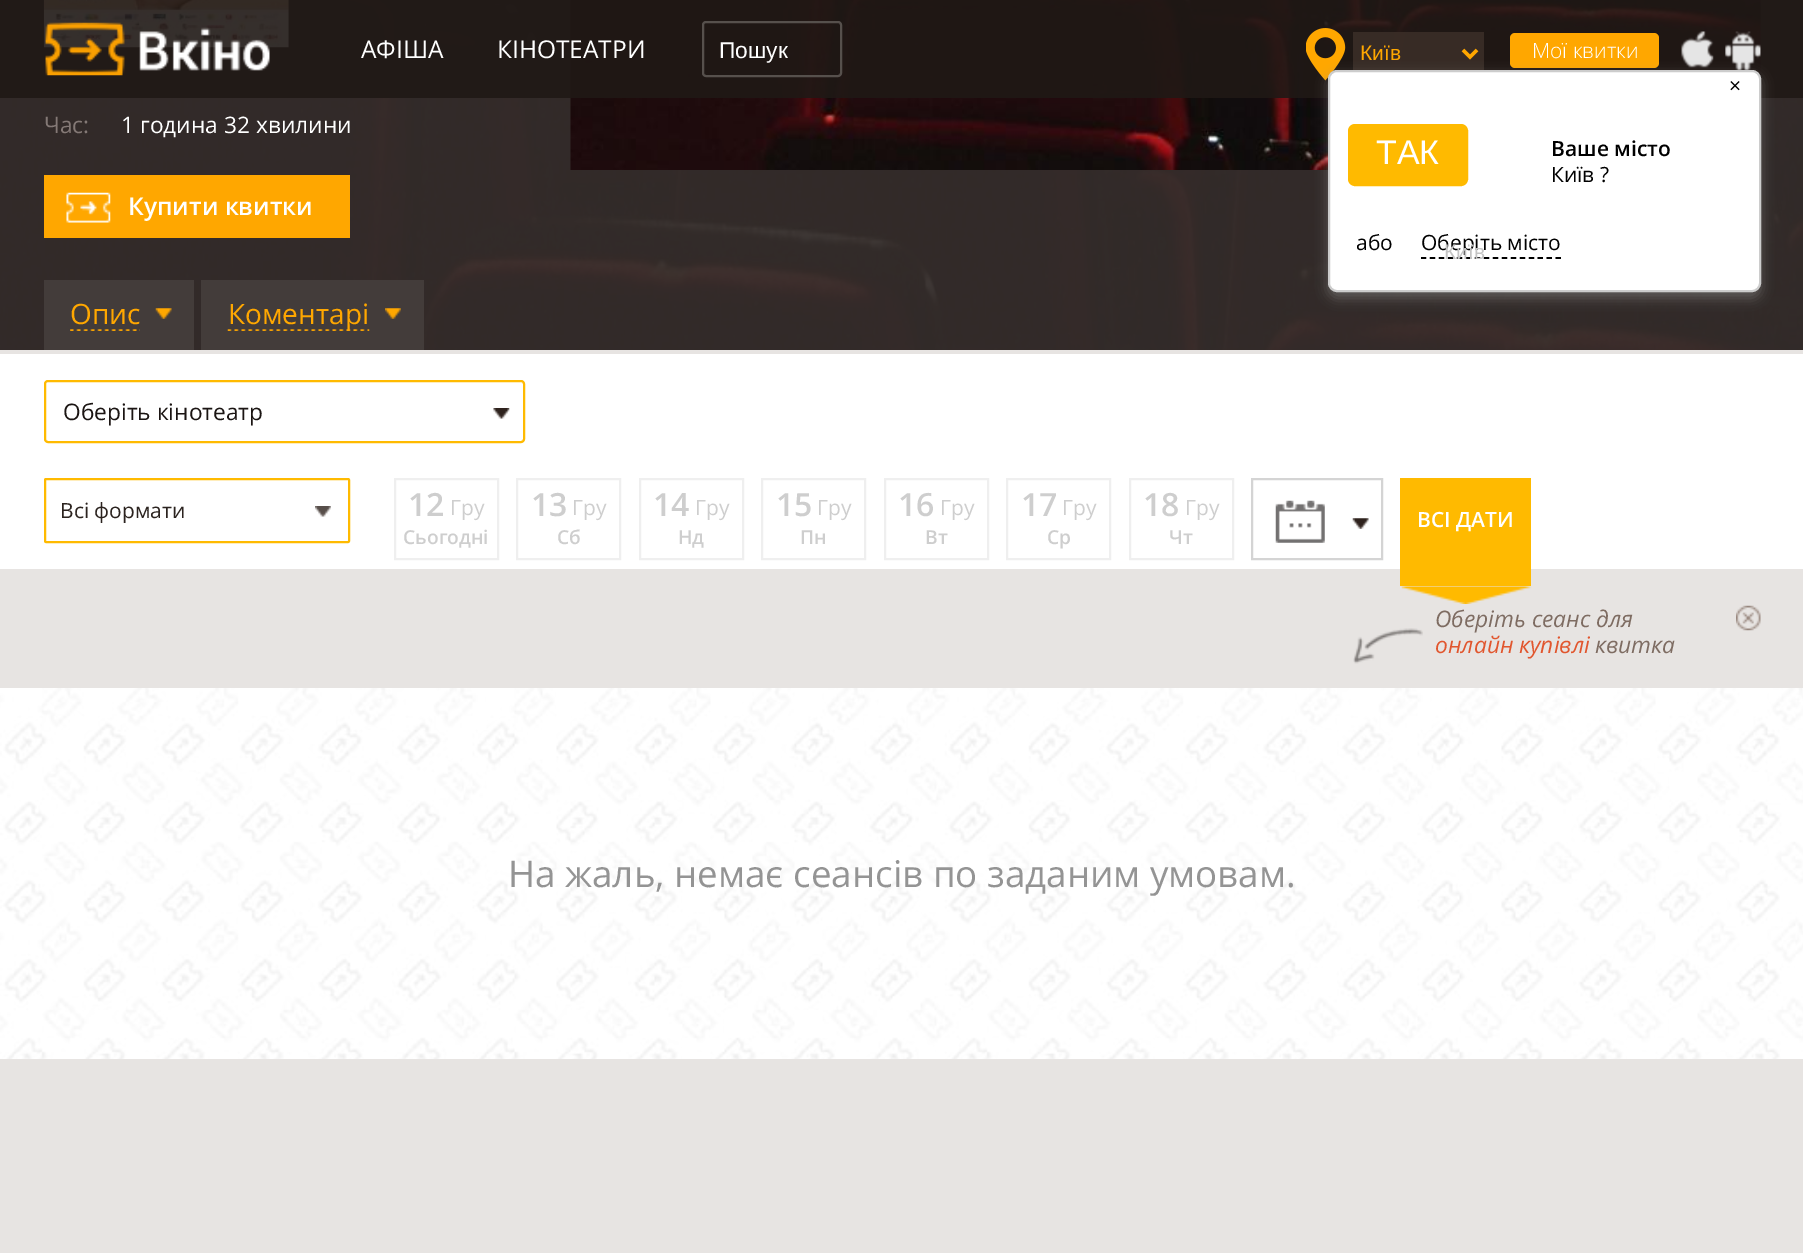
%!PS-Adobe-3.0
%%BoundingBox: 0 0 1803 1253
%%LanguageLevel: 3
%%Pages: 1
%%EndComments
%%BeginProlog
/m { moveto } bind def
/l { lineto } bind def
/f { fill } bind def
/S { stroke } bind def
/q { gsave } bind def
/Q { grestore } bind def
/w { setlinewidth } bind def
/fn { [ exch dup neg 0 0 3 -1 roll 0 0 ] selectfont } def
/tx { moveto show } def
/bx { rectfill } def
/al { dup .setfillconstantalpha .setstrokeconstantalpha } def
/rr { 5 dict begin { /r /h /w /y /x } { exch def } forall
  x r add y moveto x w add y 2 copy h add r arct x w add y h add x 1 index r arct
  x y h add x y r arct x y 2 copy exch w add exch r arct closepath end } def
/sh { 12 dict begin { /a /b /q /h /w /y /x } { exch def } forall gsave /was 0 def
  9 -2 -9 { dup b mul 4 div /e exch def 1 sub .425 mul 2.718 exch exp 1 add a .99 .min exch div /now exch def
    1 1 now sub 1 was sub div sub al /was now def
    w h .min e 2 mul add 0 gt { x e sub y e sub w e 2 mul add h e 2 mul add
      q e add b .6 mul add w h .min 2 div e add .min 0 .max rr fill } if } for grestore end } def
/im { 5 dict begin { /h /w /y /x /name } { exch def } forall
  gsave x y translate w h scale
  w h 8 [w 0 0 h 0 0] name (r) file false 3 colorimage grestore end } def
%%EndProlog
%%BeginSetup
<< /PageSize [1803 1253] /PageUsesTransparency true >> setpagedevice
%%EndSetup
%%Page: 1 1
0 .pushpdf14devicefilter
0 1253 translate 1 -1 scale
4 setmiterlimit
1 setgray
0 0 1803 1253 bx
(image4.raw) 0 0 1803 350 im
(image5.raw) 43 0 246 48 im
(image7.raw) 570 0 1191 170 im
0.9 al
0.122 0.094 0.082 setrgbcolor
0 0 1803 98 bx
1 al
(image0.raw) 45 22 225 54 im
/OpenSans-Regular 24.5 fn
1 setgray
(АФІША) 361 58 tx
(КІНОТЕАТРИ) 497 58 tx
0.337 0.314 0.298 setrgbcolor
2 w
703 22 138 54 3 rr S
/LiberationSans-Regular 22.75 fn
1 setgray
(Пошук) 719 58 tx
(image1.raw) 1306 28 40 53 im
0.9 al
0.227 0.176 0.153 setrgbcolor
1353 32 131 38 bx
1 al
1 0.655 0 setrgbcolor
3.5 w
1463 50 m 1470 57 l 1477 50 l S
/LiberationSans-Regular 21 fn
(Київ) 1360 60 tx
1510 33 149 35 5 rr f
/OpenSans-Light 21 fn
1 setgray
(Мої квитки) 1532 58 tx
(image2.raw) 1681 31 33 37 im
(image3.raw) 1725 31 36 39 im
0.549 setgray
1328 75 433 223 9 6 0.5 sh
1 setgray
1329 71 431 220 8 rr q f Q
0.8 setgray
2 w
S
/OpenSans-Regular 21 fn
0 setgray
(×) 1729 93 tx
1 0.729 0 setrgbcolor
1350 126 116 58 5 rr q f Q
4 w
S
/LiberationSans-Regular 34 fn
1 setgray
(ТАК) 1376 164 tx
/OpenSans-SemiBold 21 fn
0 setgray
(Ваше місто) 1551 156 tx
/OpenSans-Regular 21 fn
(Київ ?) 1551 182 tx
(або) 1356 250 tx
(Оберіть місто) 1421 250 tx
1.8 w
[5.25 3.73] 0 setdash
1421 258 m 1561 258 l S
/LiberationSans-Regular 21 fn
0.769 setgray
(Київ) 1444 259 tx
/OpenSans-Regular 22.75 fn
0.518 0.475 0.463 setrgbcolor
(Час:) 44 133 tx
1 setgray
(1 година 32 хвилини) 121 133 tx
1 0.655 0 setrgbcolor
44 175 306 63 bx
(image6.raw) 66 192 45 31 im
/OpenSans-SemiBold 24.5 fn
1 setgray
(Купити квитки) 128 215 tx
0.263 0.235 0.227 setrgbcolor
44 280 150 70 bx
(image8.raw) 70 329 70 2 im
/OpenSans-Regular 28 fn
1 0.655 0 setrgbcolor
(Опис) 70 324 tx
(image9.raw) 155 308 17 11 im
0.263 0.235 0.227 setrgbcolor
201 280 223 70 bx
(image10.raw) 227 329 143 2 im
1 0.655 0 setrgbcolor
(Коментарі) 228 324 tx
(image11.raw) 385 308 16 11 im
0.906 0.894 0.886 setrgbcolor
0 350 1803 4 bx
1 0.729 0 setrgbcolor
2 w
[] 0 setdash
45 381 479 61 3 rr S
/OpenSans-Regular 22.75 fn
0.106 0.082 0.075 setrgbcolor
(Оберіть кінотеатр) 63 420 tx
(image12.raw) 493 408 17 11 im
1 0.729 0 setrgbcolor
45 479 304 63 1 rr S
/OpenSans-Regular 21 fn
0.169 0.137 0.122 setrgbcolor
(Всі формати) 60 518 tx
(image13.raw) 315 506 16 11 im
0.937 setgray
395 479 103 80 rectstroke
/OpenSans-SemiBold 32 fn
0.808 setgray
(12) 408 516 tx
/OpenSans-Regular 21 fn
(Гру) 450 515 tx
/OpenSans-SemiBold 19.25 fn
(Сьогодні) 403 544 tx
0.937 setgray
517 479 103 80 rectstroke
/OpenSans-SemiBold 32 fn
0.808 setgray
(13) 531 516 tx
/OpenSans-Regular 21 fn
(Гру) 572 515 tx
/OpenSans-SemiBold 19.25 fn
(Сб) 557 544 tx
0.937 setgray
640 479 103 80 rectstroke
/OpenSans-SemiBold 32 fn
0.808 setgray
(14) 653 516 tx
/OpenSans-Regular 21 fn
(Гру) 695 515 tx
/OpenSans-SemiBold 19.25 fn
(Нд) 678 544 tx
0.937 setgray
762 479 103 80 rectstroke
/OpenSans-SemiBold 32 fn
0.808 setgray
(15) 776 516 tx
/OpenSans-Regular 21 fn
(Гру) 817 515 tx
/OpenSans-SemiBold 19.25 fn
(Пн) 800 544 tx
0.937 setgray
885 479 103 80 rectstroke
/OpenSans-SemiBold 32 fn
0.808 setgray
(16) 898 516 tx
/OpenSans-Regular 21 fn
(Гру) 940 515 tx
/OpenSans-SemiBold 19.25 fn
(Вт) 925 544 tx
0.937 setgray
1007 479 103 80 rectstroke
/OpenSans-SemiBold 32 fn
0.808 setgray
(17) 1021 516 tx
/OpenSans-Regular 21 fn
(Гру) 1062 515 tx
/OpenSans-SemiBold 19.25 fn
(Ср) 1047 544 tx
0.937 setgray
1130 479 103 80 rectstroke
/OpenSans-SemiBold 32 fn
0.808 setgray
(18) 1143 516 tx
/OpenSans-Regular 21 fn
(Гру) 1185 515 tx
/OpenSans-SemiBold 19.25 fn
(Чт) 1169 544 tx
0.831 setgray
1252 479 130 80 rectstroke
(image14.raw) 1275 500 50 43 im
(image15.raw) 1352 518 17 11 im
0.906 0.894 0.886 setrgbcolor
0 569 1803 684 bx
1 0.729 0 setrgbcolor
1400 478 131 108 bx
/OpenSans-SemiBold 21 fn
1 setgray
(ВСІ ДАТИ) 1417 527 tx
(image16.raw) 1401 586 131 18 im
/OpenSans-Italic 22.75 fn
0.494 0.424 0.384 setrgbcolor
(Оберіть сеанс для) 1435 627 tx
(image17.raw) 1736 605 25 26 im
(image18.raw) 1353 628 70 36 im
0.882 0.337 0.18 setrgbcolor
(онлайн купівлі) 1435 653 tx
0.494 0.424 0.384 setrgbcolor
(квитка) 1595 653 tx
(image19.raw) 0 688 1803 371 im
/OpenSans-Regular 36.75 fn
0.58 setgray
(На жаль, немає сеансів по заданим умовам.) 508 887 tx
.poppdf14devicefilter showpage
%%EOF
